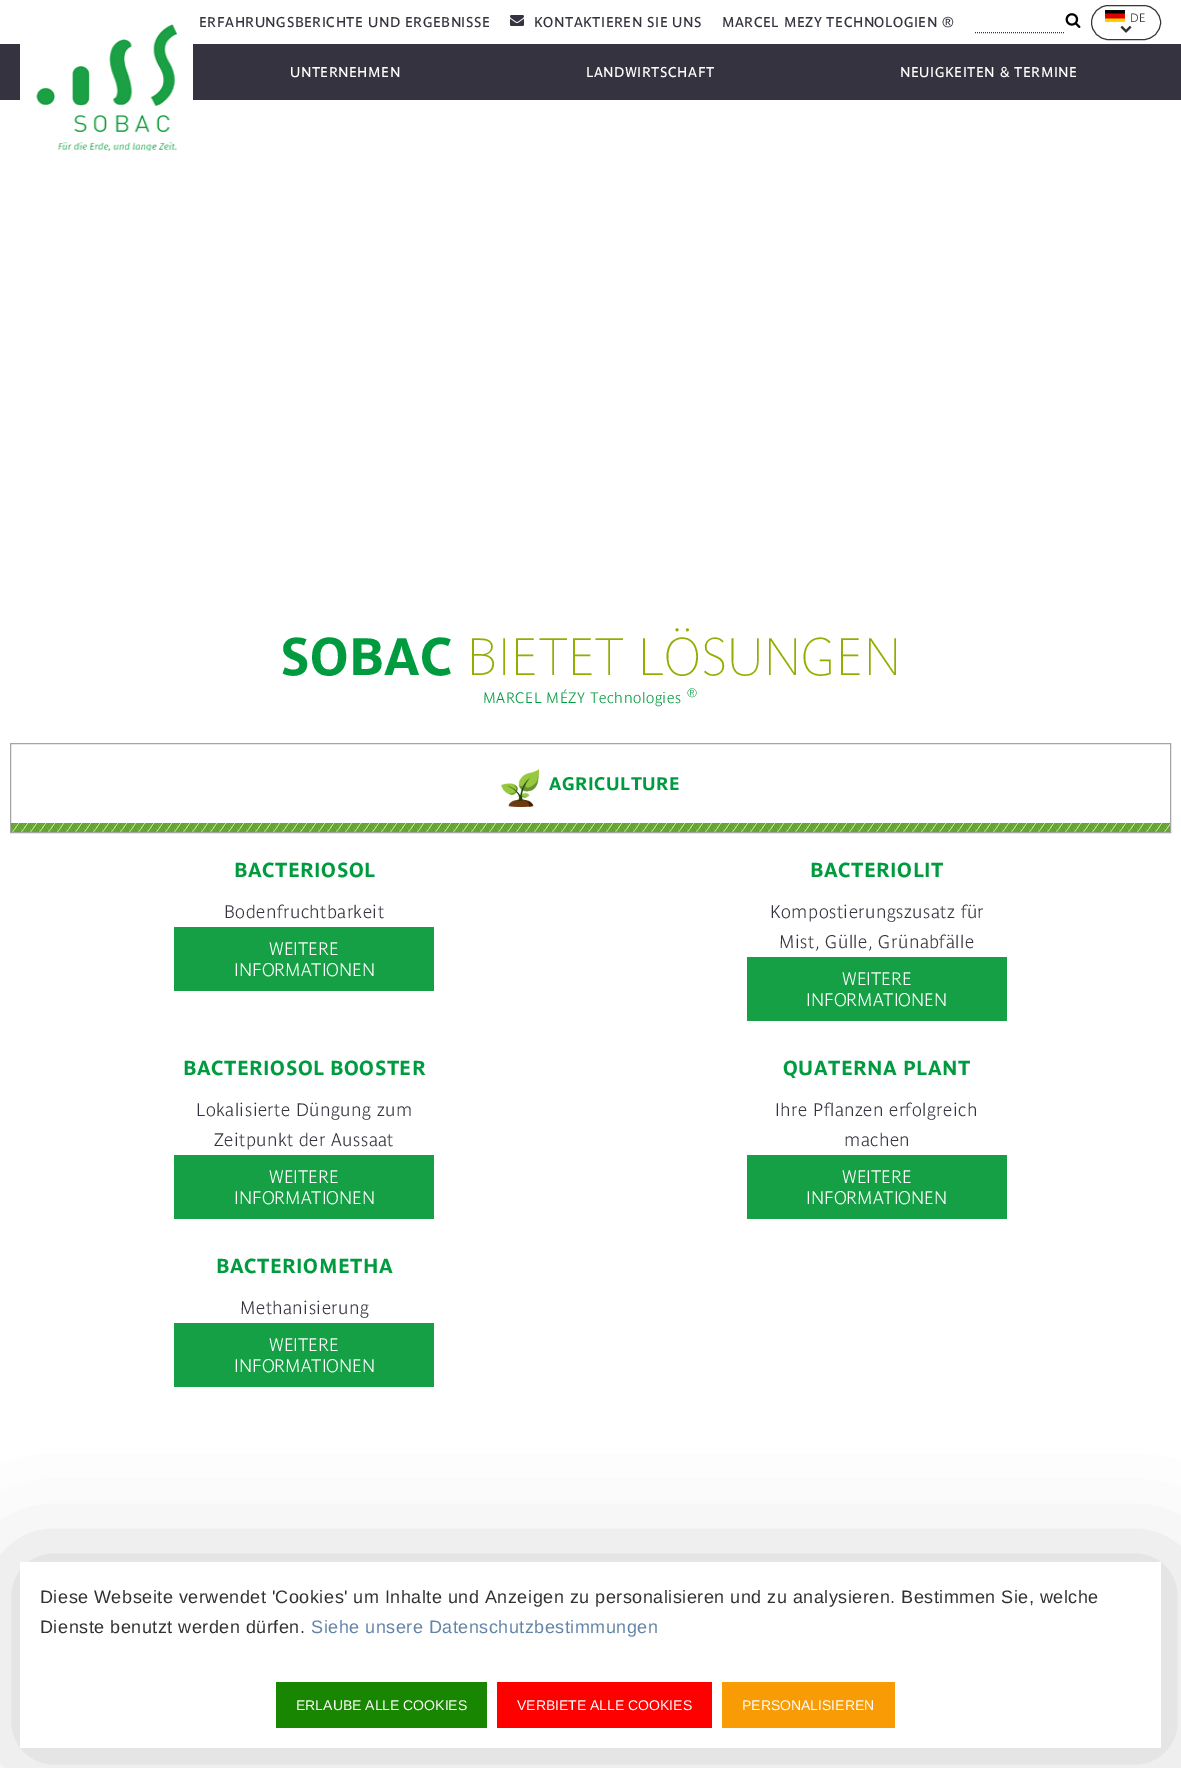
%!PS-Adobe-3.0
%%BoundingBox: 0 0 1181 1768
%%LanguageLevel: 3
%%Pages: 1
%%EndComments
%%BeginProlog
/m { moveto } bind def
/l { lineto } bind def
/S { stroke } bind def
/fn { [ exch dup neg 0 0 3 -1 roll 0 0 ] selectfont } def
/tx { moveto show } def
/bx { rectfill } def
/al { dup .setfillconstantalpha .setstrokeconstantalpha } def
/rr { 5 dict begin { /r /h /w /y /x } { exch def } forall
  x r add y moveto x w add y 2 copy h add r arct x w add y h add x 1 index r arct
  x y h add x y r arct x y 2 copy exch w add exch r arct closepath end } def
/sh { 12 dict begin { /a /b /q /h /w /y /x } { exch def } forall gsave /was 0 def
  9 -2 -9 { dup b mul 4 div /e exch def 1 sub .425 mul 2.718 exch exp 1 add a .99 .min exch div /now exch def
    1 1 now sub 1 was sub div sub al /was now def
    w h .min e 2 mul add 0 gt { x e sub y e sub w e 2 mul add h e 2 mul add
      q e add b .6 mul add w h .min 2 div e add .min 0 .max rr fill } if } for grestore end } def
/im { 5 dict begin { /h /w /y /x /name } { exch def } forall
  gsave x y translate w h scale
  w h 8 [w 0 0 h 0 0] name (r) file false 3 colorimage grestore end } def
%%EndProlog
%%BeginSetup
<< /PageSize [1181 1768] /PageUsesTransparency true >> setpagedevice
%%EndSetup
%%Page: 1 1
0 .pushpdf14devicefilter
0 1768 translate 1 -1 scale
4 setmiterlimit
1 setgray
0 0 1181 1768 bx
/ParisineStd-Regular 14 fn
0.208 0.2 0.247 setrgbcolor
199 27 m 0.5 0 (ERFAHRUNGSBERICHTE UND ERGEBNISSE) ashow
(image0.raw) 510 15 14 11 im
534 27 m 0.5 0 (KONTAKTIEREN SIE UNS) ashow
722 27 m 0.5 0 (MARCEL MEZY TECHNOLOGIEN ®) ashow
(image1.raw) 1065 13 16 15 im
[1 1] 0 setdash
975 32.5 m 1065 32.5 l S
0.216 0.216 0.212 setrgbcolor
[] 0 setdash
1091.5 5.5 69 34 17 rr S
(image2.raw) 1105 10 20 12 im
/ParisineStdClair-Bold 12 fn
0.192 setgray
1130 22 m 0.5 0 (DE) ashow
(image3.raw) 1120 25 12 8 im
0.208 0.2 0.247 setrgbcolor
0 44 1181 56 bx
1 setgray
20 44 173 56 bx
(image4.raw) 36 24 142 127 im
/ParisineStd-Regular 14 fn
290 77 m 0.5 0 (UNTERNEHMEN) ashow
586 77 m 0.5 0 (LANDWIRTSCHAFT) ashow
900 77 m 0.5 0 (NEUIGKEITEN & TERMINE) ashow
/ParisineStd-Bold 52 fn
0 0.608 0.243 setrgbcolor
280 675 m 0.5 0 (SOBAC) ashow
/ParisineStdClair-Regular 52 fn
0.573 0.682 0 setrgbcolor
467 675 m 0.5 0 (BIETET LÖSUNGEN) ashow
/ParisineStdClair-Bold 15 fn
0 0.608 0.243 setrgbcolor
483 703 m 0.5 0 (MARCEL MÉZY Technologies) ashow
/ParisineStdClair-Bold 12 fn
687 697 m 0.5 0 (®) ashow
0.647 setgray
10.5 743.5 1160 89 rectstroke
(image5.raw) 501 769 38 38 im
/ParisineStd-Bold 18 fn
0 0.608 0.243 setrgbcolor
549 790 m 0.5 0 (AGRICULTURE) ashow
(image6.raw) 11 823 1159 9 im
/ParisineStd-Bold 20 fn
234 877 m 0.5 0 (BACTERIOSOL) ashow
/ParisineStdClair-Bold 18 fn
0.208 0.2 0.247 setrgbcolor
224 918 m 0.5 0 (Bodenfruchtbarkeit) ashow
0.086 0.627 0.271 setrgbcolor
174 927 260 64 bx
1 setgray
(WEITERE) 269 955 tx
(INFORMATIONEN) 234 976 tx
/ParisineStd-Bold 20 fn
0 0.608 0.243 setrgbcolor
810 877 m 0.5 0 (BACTERIOLIT) ashow
/ParisineStdClair-Bold 18 fn
0.208 0.2 0.247 setrgbcolor
770 918 m 0.5 0 (Kompostierungszusatz für) ashow
779 948 m 0.5 0 (Mist, Gülle, Grünabfälle) ashow
0.086 0.627 0.271 setrgbcolor
747 957 260 64 bx
1 setgray
(WEITERE) 842 985 tx
(INFORMATIONEN) 806 1006 tx
/ParisineStd-Bold 20 fn
0 0.608 0.243 setrgbcolor
183 1075 m 0.5 0 (BACTERIOSOL BOOSTER) ashow
/ParisineStdClair-Bold 18 fn
0.208 0.2 0.247 setrgbcolor
196 1116 m 0.5 0 (Lokalisierte Düngung zum) ashow
214 1146 m 0.5 0 (Zeitpunkt der Aussaat) ashow
0.086 0.627 0.271 setrgbcolor
174 1155 260 64 bx
1 setgray
(WEITERE) 269 1183 tx
(INFORMATIONEN) 234 1204 tx
/ParisineStd-Bold 20 fn
0 0.608 0.243 setrgbcolor
783 1075 m 0.5 0 (QUATERNA PLANT) ashow
/ParisineStdClair-Bold 18 fn
0.208 0.2 0.247 setrgbcolor
775 1116 m 0.5 0 (Ihre Pflanzen erfolgreich) ashow
844 1146 m 0.5 0 (machen) ashow
0.086 0.627 0.271 setrgbcolor
747 1155 260 64 bx
1 setgray
(WEITERE) 842 1183 tx
(INFORMATIONEN) 806 1204 tx
/ParisineStd-Bold 20 fn
0 0.608 0.243 setrgbcolor
216 1273 m 0.5 0 (BACTERIOMETHA) ashow
/ParisineStdClair-Bold 18 fn
0.208 0.2 0.247 setrgbcolor
240 1314 m 0.5 0 (Methanisierung) ashow
0.086 0.627 0.271 setrgbcolor
174 1323 260 64 bx
1 setgray
(WEITERE) 269 1351 tx
(INFORMATIONEN) 234 1372 tx
0 setgray
24 1566 1141 186 0 50 0.2 sh
1 setgray
20 1562 1141 186 bx
/LiberationSans-Regular 18 fn
0.192 setgray
40 1603 m 0.5 0 (Diese Webseite verwendet 'Cookies' um Inhalte und Anzeigen zu personalisieren und zu analysieren. Bestimmen Sie, welche) ashow
40 1633 m 0.5 0 (Dienste benutzt werden dürfen.) ashow
0.388 0.514 0.655 setrgbcolor
311 1633 m 0.5 0 (Siehe unsere Datenschutzbestimmungen) ashow
0.094 0.525 0 setrgbcolor
276 1682 211 46 bx
/LiberationSans-Regular 14 fn
1 setgray
(ERLAUBE ALLE COOKIES) 296 1710 tx
1 0 0 setrgbcolor
497 1682 215 46 bx
1 setgray
(VERBIETE ALLE COOKIES) 517 1710 tx
0.976 0.608 0.016 setrgbcolor
722 1682 173 46 bx
1 setgray
(PERSONALISIEREN) 742 1710 tx
.poppdf14devicefilter showpage
%%EOF
